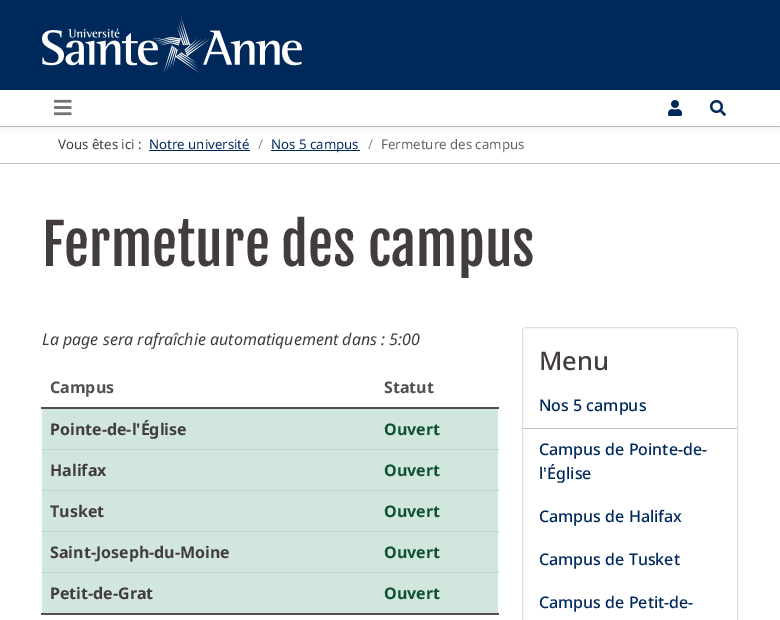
%!PS-Adobe-3.0
%%BoundingBox: 0 0 780 620
%%LanguageLevel: 3
%%Pages: 1
%%EndComments
%%BeginProlog
/S { stroke } bind def
/fn { [ exch dup neg 0 0 3 -1 roll 0 0 ] selectfont } def
/tx { moveto show } def
/bx { rectfill } def
/al { dup .setfillconstantalpha .setstrokeconstantalpha } def
/rr { 5 dict begin { /r /h /w /y /x } { exch def } forall
  x r add y moveto x w add y 2 copy h add r arct x w add y h add x 1 index r arct
  x y h add x y r arct x y 2 copy exch w add exch r arct closepath end } def
/sh { 12 dict begin { /a /b /q /h /w /y /x } { exch def } forall gsave /was 0 def
  9 -2 -9 { dup b mul 4 div /e exch def 1 sub .425 mul 2.718 exch exp 1 add a .99 .min exch div /now exch def
    1 1 now sub 1 was sub div sub al /was now def
    w h .min e 2 mul add 0 gt { x e sub y e sub w e 2 mul add h e 2 mul add
      q e add b .6 mul add w h .min 2 div e add .min 0 .max rr fill } if } for grestore end } def
/im { 5 dict begin { /h /w /y /x /name } { exch def } forall
  gsave x y translate w h scale
  w h 8 [w 0 0 h 0 0] name (r) file false 3 colorimage grestore end } def
%%EndProlog
%%BeginSetup
<< /PageSize [780 620] /PageUsesTransparency true >> setpagedevice
%%EndSetup
%%Page: 1 1
0 .pushpdf14devicefilter
0 620 translate 1 -1 scale
4 setmiterlimit
1 setgray
0 0 780 620 bx
0 0.161 0.357 setrgbcolor
0 0 780 90 bx
(image0.raw) 42 16 260 58 im
0.776 0.769 0.769 setrgbcolor
0 126 780 1 bx
0 setgray
0 92 780 36 0 2 0.07 sh
1 setgray
0 90 780 36 bx
(image1.raw) 54 99 18 17 im
(image2.raw) 668 100 14 16 im
(image3.raw) 710 100 16 16 im
0.776 0.769 0.769 setrgbcolor
0 163 780 1 bx
/NotoSans-Regular 13.25 fn
0.259 0.235 0.235 setrgbcolor
(Vous êtes ici :) 58 149 tx
0 0.161 0.357 setrgbcolor
(Notre université) 149 149 tx
149 150 101 1 bx
0.553 0.541 0.541 setrgbcolor
(/) 258 149 tx
0 0.161 0.357 setrgbcolor
271 150 89 1 bx
(Nos 5 campus) 271 149 tx
0.553 0.541 0.541 setrgbcolor
(/) 368 149 tx
0.404 0.384 0.384 setrgbcolor
(Fermeture des campus) 381 149 tx
/FjallaOne-Regular 55.6 fn
0.259 0.235 0.235 setrgbcolor
(Fermeture des campus) 42 266 tx
/NotoSans-Italic 16 fn
(La page sera rafraîchie automatiquement dans : 5:00) 42 345 tx
/NotoSans-Bold 16 fn
0.329 0.31 0.31 setrgbcolor
(Campus) 50 393 tx
(Statut) 384 393 tx
41 407 458 2 bx
0.82 0.906 0.867 setrgbcolor
42 409 456 40 bx
0.259 0.235 0.235 setrgbcolor
(Pointe-de-l'Église) 50 435 tx
0.729 0.859 0.8 setrgbcolor
42 449 457 1 bx
0.059 0.318 0.196 setrgbcolor
(Ouvert) 384 435 tx
0.82 0.906 0.867 setrgbcolor
42 450 456 40 bx
0.259 0.235 0.235 setrgbcolor
(Halifax) 50 476 tx
0.729 0.859 0.8 setrgbcolor
42 490 457 1 bx
0.059 0.318 0.196 setrgbcolor
(Ouvert) 384 476 tx
0.82 0.906 0.867 setrgbcolor
42 491 456 40 bx
0.259 0.235 0.235 setrgbcolor
(Tusket) 50 517 tx
0.729 0.859 0.8 setrgbcolor
42 531 457 1 bx
0.059 0.318 0.196 setrgbcolor
(Ouvert) 384 517 tx
0.82 0.906 0.867 setrgbcolor
42 532 456 40 bx
0.259 0.235 0.235 setrgbcolor
(Saint-Joseph-du-Moine) 50 558 tx
0.729 0.859 0.8 setrgbcolor
42 572 457 1 bx
0.059 0.318 0.196 setrgbcolor
(Ouvert) 384 558 tx
0.82 0.906 0.867 setrgbcolor
42 573 456 40 bx
0.259 0.235 0.235 setrgbcolor
(Petit-de-Grat) 50 599 tx
0.059 0.318 0.196 setrgbcolor
(Ouvert) 384 599 tx
0.329 0.31 0.31 setrgbcolor
41 613 458 2 bx
0.875 setgray
522.5 327.5 215 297 3.5 rr S
/NotoSans-Medium 25.5 fn
0.259 0.235 0.235 setrgbcolor
(Menu) 539 370 tx
/NotoSans-Medium 16 fn
0 0.161 0.357 setrgbcolor
(Nos 5 campus) 539 411 tx
0.776 0.769 0.769 setrgbcolor
523 428 214 1 bx
0 0.161 0.357 setrgbcolor
(Campus de Pointe-de-) 539 455 tx
(l'Église) 539 479 tx
(Campus de Halifax) 539 522 tx
(Campus de Tusket) 539 565 tx
(Campus de Petit-de-) 539 608 tx
.poppdf14devicefilter showpage
%%EOF
